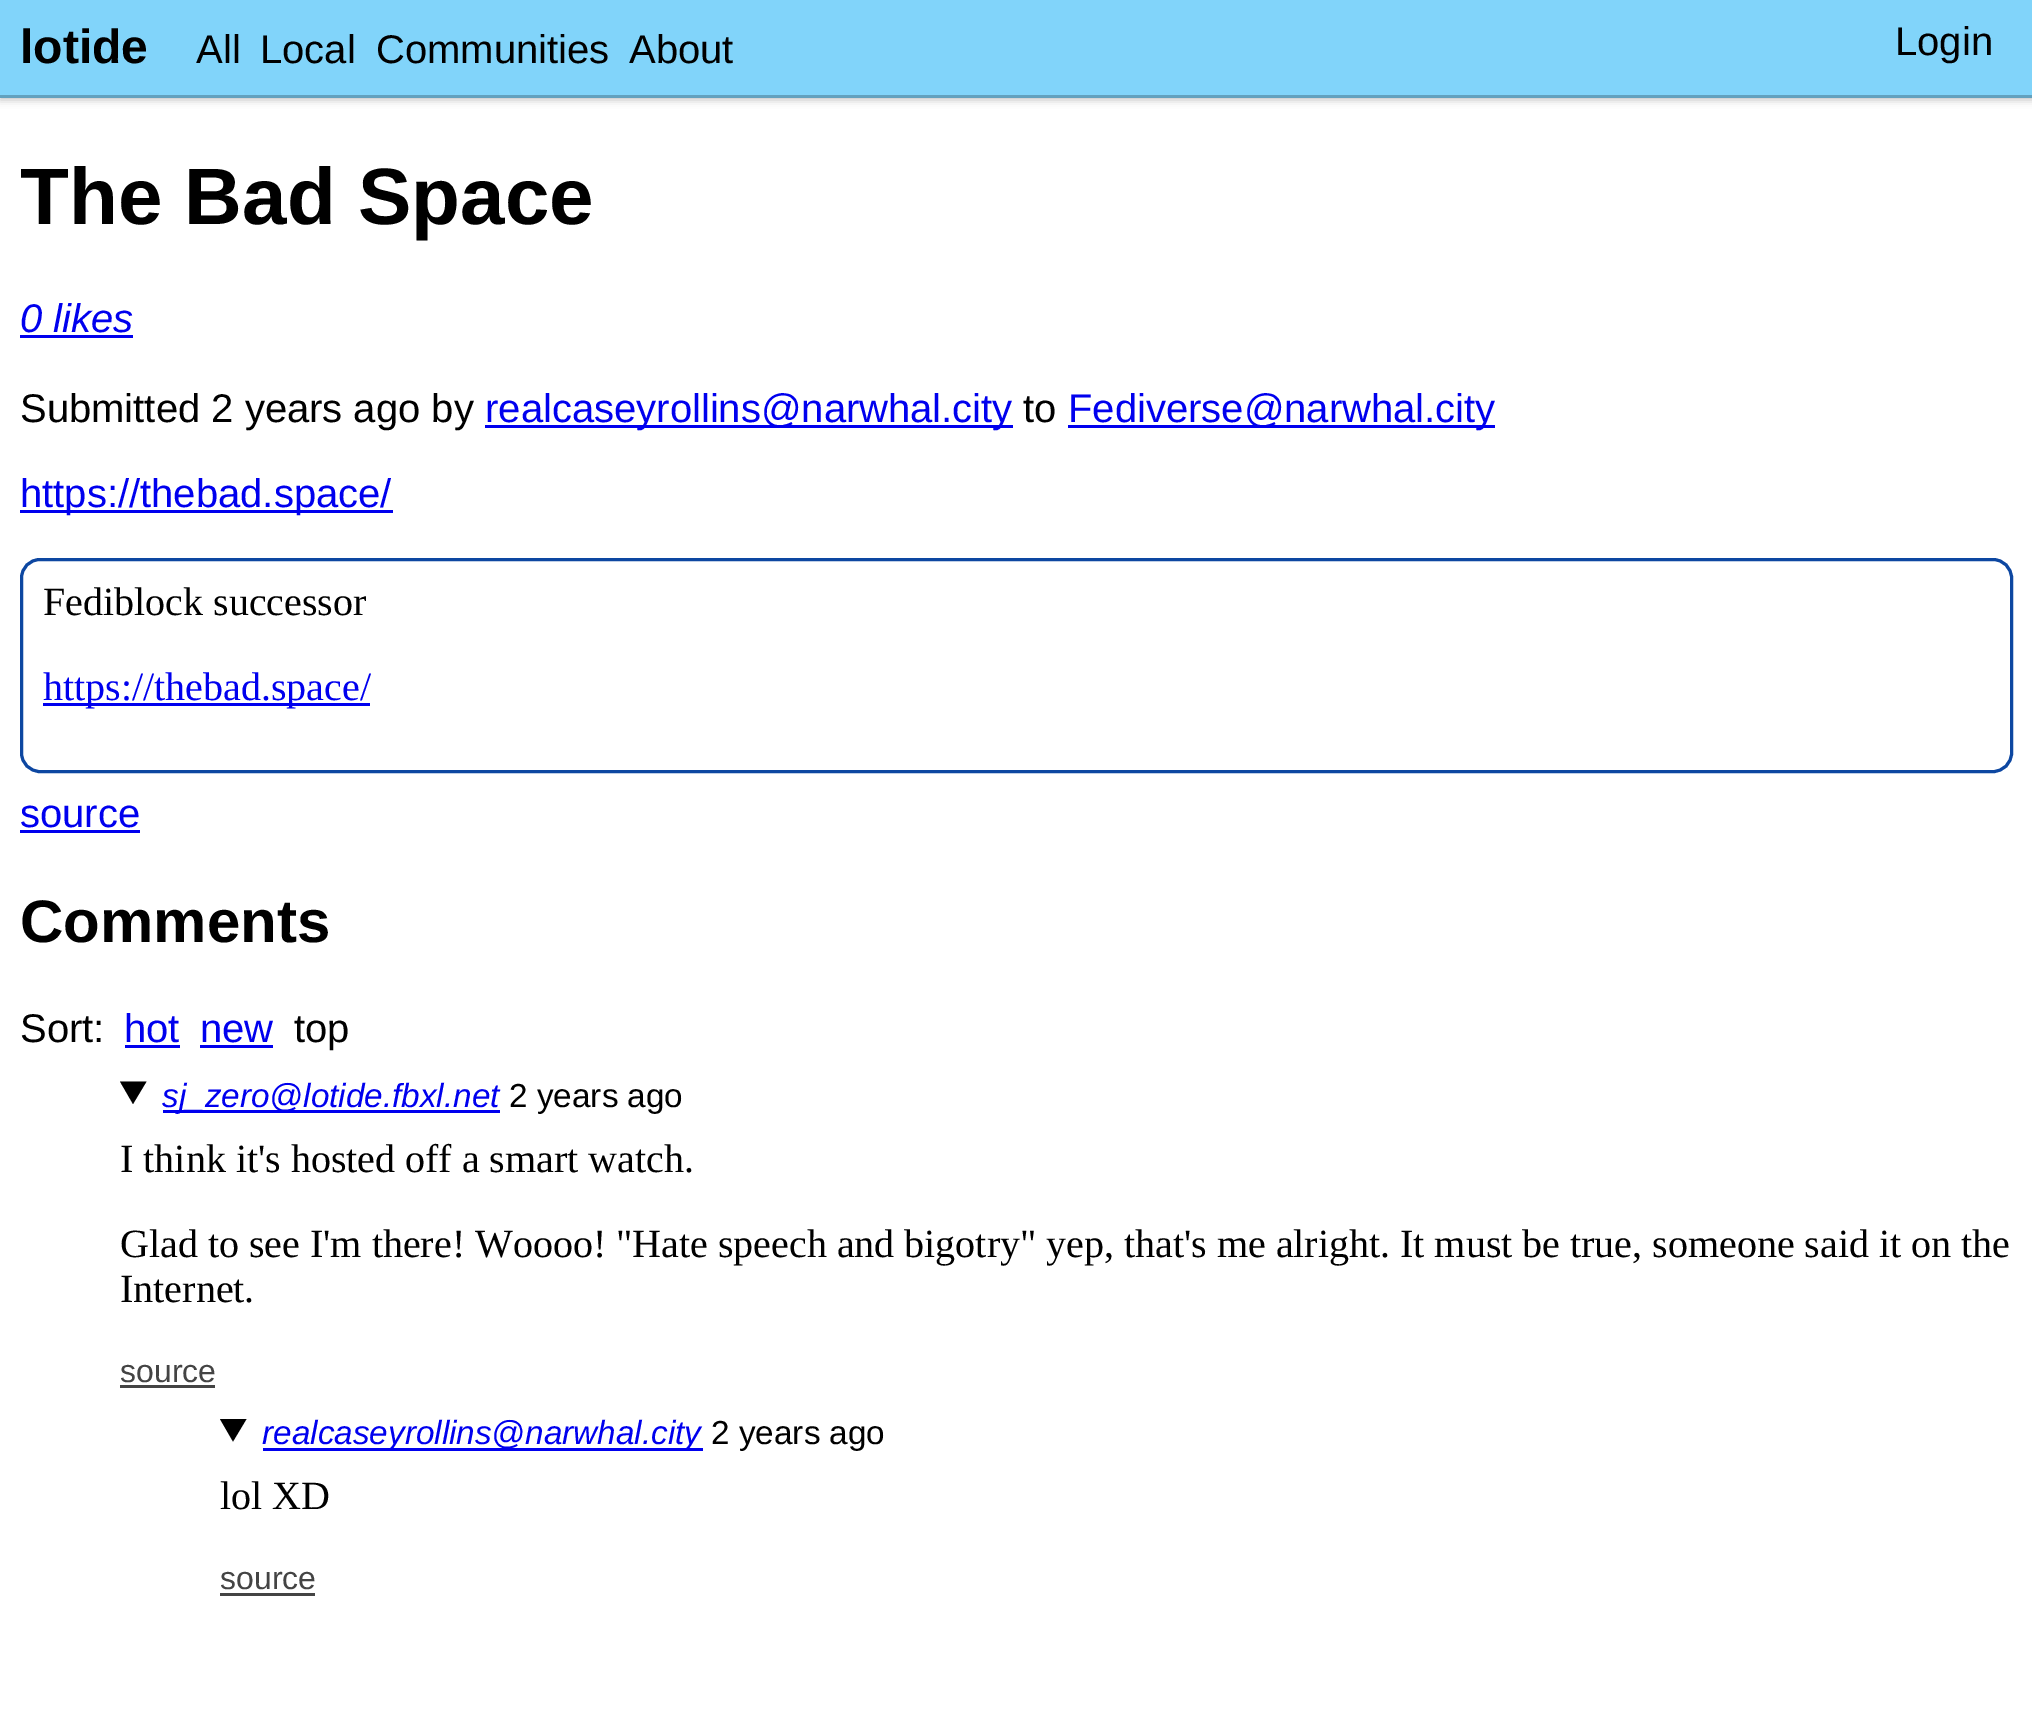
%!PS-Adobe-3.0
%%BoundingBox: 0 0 2032 1725
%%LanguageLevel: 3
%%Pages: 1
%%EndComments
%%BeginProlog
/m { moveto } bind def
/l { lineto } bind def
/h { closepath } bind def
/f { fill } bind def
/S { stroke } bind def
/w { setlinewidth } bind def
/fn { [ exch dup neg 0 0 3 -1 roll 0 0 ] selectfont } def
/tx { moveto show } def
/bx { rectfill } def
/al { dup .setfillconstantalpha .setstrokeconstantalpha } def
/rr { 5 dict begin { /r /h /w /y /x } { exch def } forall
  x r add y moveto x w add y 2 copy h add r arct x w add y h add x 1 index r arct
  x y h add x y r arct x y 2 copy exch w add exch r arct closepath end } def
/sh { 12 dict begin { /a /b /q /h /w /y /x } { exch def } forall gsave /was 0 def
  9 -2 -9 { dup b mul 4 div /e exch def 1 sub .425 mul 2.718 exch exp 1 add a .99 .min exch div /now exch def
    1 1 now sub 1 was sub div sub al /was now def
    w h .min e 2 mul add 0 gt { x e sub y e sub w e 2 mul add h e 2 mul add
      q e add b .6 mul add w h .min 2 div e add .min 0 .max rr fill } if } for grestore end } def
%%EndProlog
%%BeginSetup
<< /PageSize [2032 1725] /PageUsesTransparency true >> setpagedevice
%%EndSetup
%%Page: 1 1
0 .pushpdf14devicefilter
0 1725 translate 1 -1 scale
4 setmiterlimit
1 setgray
0 0 2032 1725 bx
0 setgray
0 3 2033 97 0 4 0.24 sh
0.506 0.831 0.98 setrgbcolor
0 0 2032 95 bx
0.384 0.631 0.745 setrgbcolor
0 95 2032 3 bx
/LiberationSans-Bold 48 fn
0 setgray
(lotide) 20 63 tx
/LiberationSans-Regular 40 fn
(All) 196 63 tx
(Local) 260 63 tx
(Communities) 376 63 tx
(About) 629 63 tx
(Login) 1895 55 tx
/LiberationSans-Bold 80 fn
(The Bad Space) 20 224 tx
/LiberationSans-Italic 40 fn
0 0 0.933 setrgbcolor
(0 likes) 20 332 tx
20 335 113 3 bx
/LiberationSans-Regular 40 fn
0 setgray
(Submitted 2 years ago by) 20 422 tx
0 0 0.933 setrgbcolor
485 425 528 3 bx
(realcaseyrollins@narwhal.city) 485 422 tx
0 setgray
(to) 1023 422 tx
0 0 0.933 setrgbcolor
1068 425 427 3 bx
(Fediverse@narwhal.city) 1068 422 tx
20 510 373 3 bx
(https://thebad.space/) 20 507 tx
0.051 0.278 0.631 setrgbcolor
3 w
21.5 559.5 1990 212 18.5 rr S
/LiberationSerif-Regular 40 fn
0 setgray
(Fediblock successor) 43 615 tx
0 0 0.933 setrgbcolor
43 703 327 3 bx
(https://thebad.space/) 43 700 tx
/LiberationSans-Regular 40 fn
(source) 20 827 tx
20 830 120 3 bx
/LiberationSans-Bold 60 fn
0 setgray
(Comments) 20 942 tx
/LiberationSans-Regular 40 fn
(Sort:) 20 1042 tx
0 0 0.933 setrgbcolor
(hot) 124 1042 tx
125 1045 55 3 bx
(new) 200 1042 tx
200 1045 73 3 bx
0 setgray
(top) 294 1042 tx
120 1081.5 m 146.5 1081.5 l 133 1104 l h f
0 0 0.933 setrgbcolor
163 1110 337 3 bx
/LiberationSans-Italic 33.3 fn
(sj_zero@lotide.fbxl.net) 162 1107 tx
/LiberationSans-Regular 33.3 fn
0 setgray
(2 years ago) 509 1107 tx
/LiberationSerif-Regular 40 fn
(I think it's hosted off a smart watch.) 120 1172 tx
(Glad to see I'm there! Woooo! "Hate speech and bigotry" yep, that's me alright. It must be true, someone said it on the) 120 1257 tx
(Internet.) 120 1302 tx
/LiberationSans-Regular 32 fn
0.267 setgray
(source) 120 1382 tx
120 1385 95 3 bx
0 setgray
220 1419 m 246.5 1419 l 233 1441.5 l h f
0 0 0.933 setrgbcolor
263 1448 440 3 bx
/LiberationSans-Italic 33.3 fn
(realcaseyrollins@narwhal.city) 262 1444 tx
/LiberationSans-Regular 33.3 fn
0 setgray
(2 years ago) 711 1444 tx
/LiberationSerif-Regular 40 fn
(lol XD) 220 1509 tx
/LiberationSans-Regular 32 fn
0.267 setgray
(source) 220 1589 tx
220 1593 95 3 bx
.poppdf14devicefilter showpage
%%EOF
